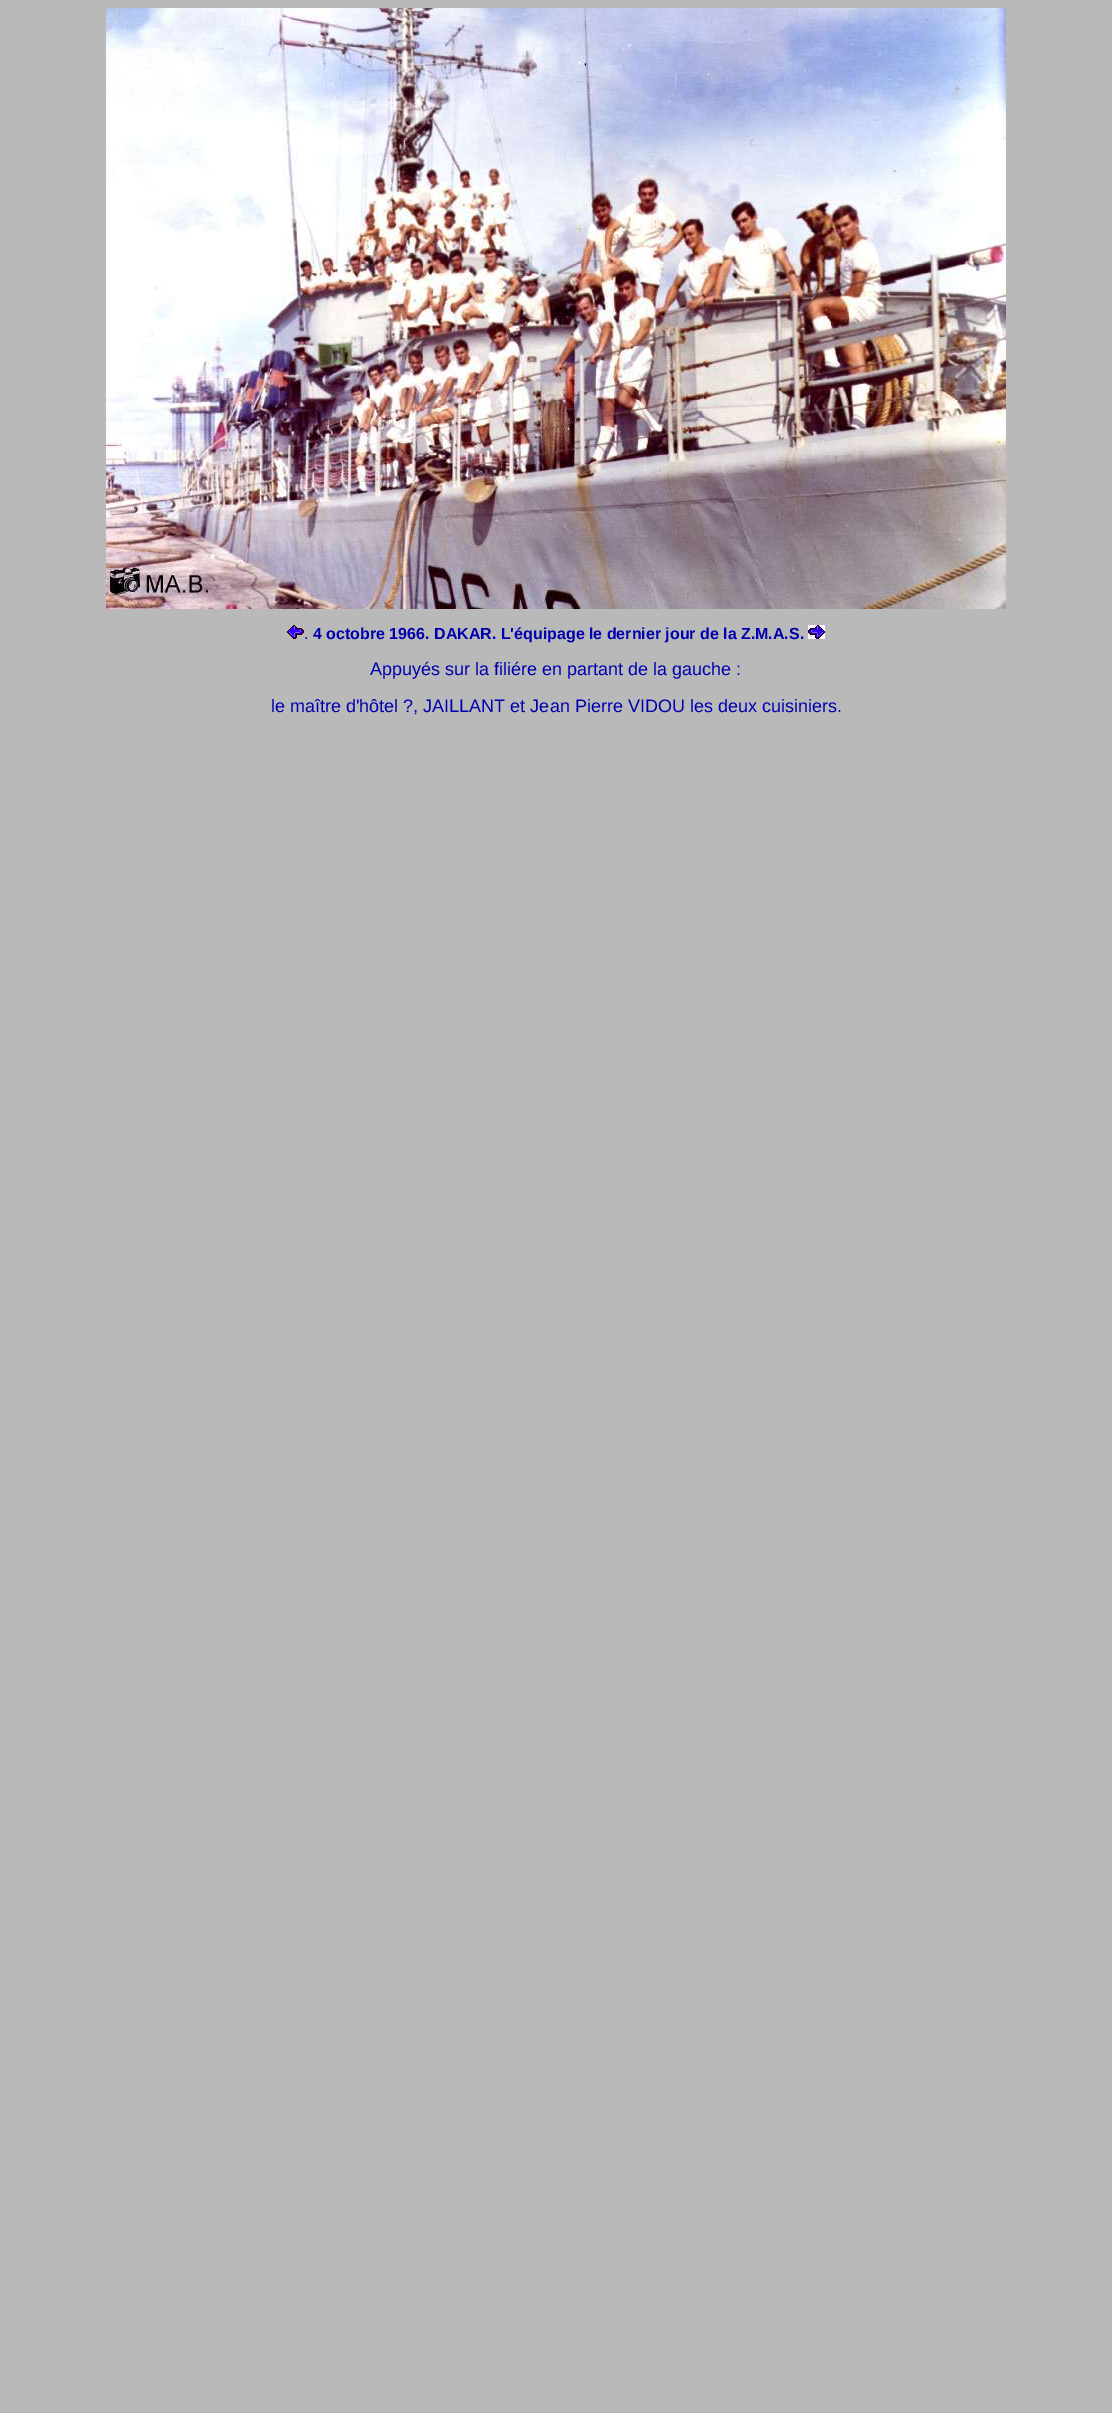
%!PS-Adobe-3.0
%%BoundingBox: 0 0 1112 2413
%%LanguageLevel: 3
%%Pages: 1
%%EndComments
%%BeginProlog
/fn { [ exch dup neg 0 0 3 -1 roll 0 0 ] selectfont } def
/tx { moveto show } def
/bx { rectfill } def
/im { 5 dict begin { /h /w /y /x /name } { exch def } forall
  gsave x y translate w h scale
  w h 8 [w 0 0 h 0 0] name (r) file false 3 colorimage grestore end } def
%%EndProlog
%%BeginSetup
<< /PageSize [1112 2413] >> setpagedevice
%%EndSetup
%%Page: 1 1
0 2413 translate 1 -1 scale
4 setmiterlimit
0.725 setgray
0 0 1112 2413 bx
(image0.raw) 106 8 900 601 im
(image1.raw) 287 625 17 14 im
/LiberationSans-Regular 16 fn
0 0 0.686 setrgbcolor
(.) 304 639 tx
/LiberationSans-Bold 16 fn
(4 octobre 1966. DAKAR. L'équipage le dernier jour de la Z.M.A.S.) 313 639 tx
(image2.raw) 808 625 17 14 im
/LiberationSans-Regular 18 fn
(Appuyés sur la filiére en partant de la gauche :) 370 675 tx
(le maître d'hôtel ?, JAILLANT et Jean Pierre VIDOU les deux cuisiniers.) 271 712 tx
showpage
%%EOF
